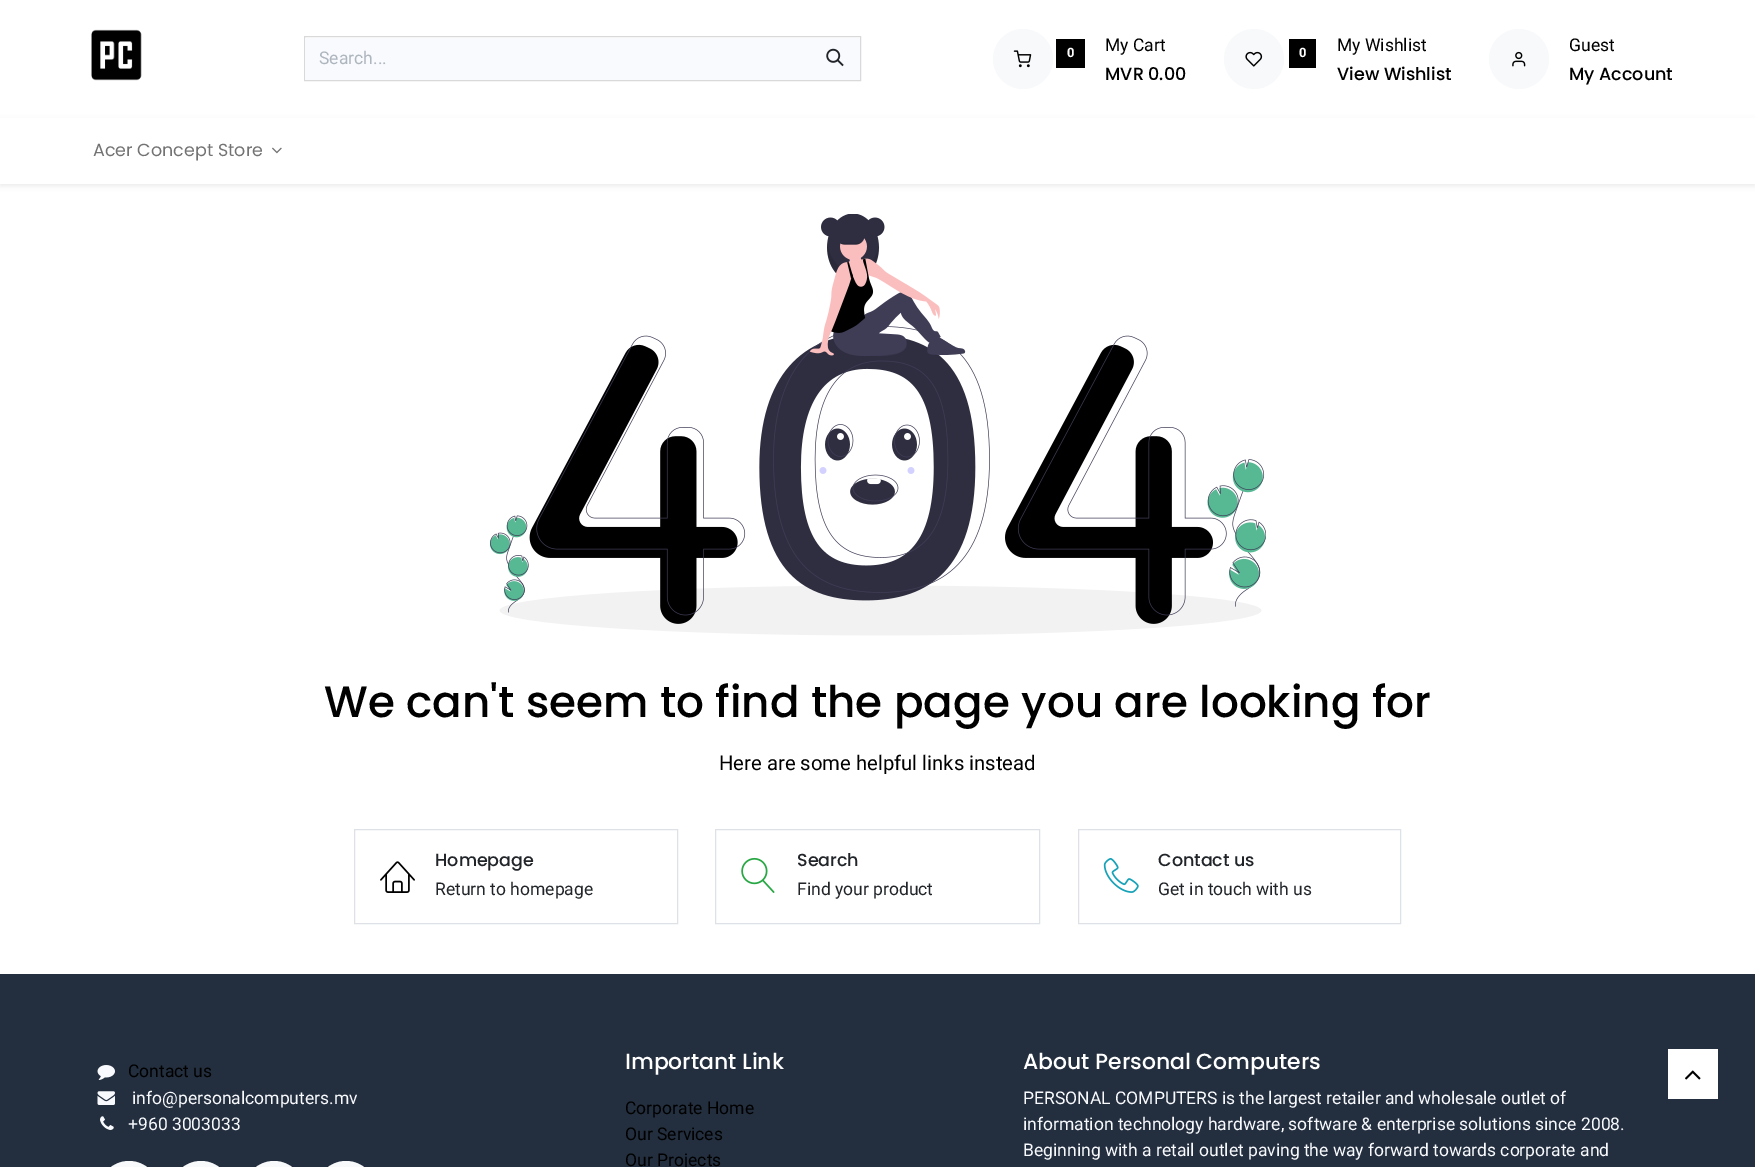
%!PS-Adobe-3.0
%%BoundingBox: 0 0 1755 1167
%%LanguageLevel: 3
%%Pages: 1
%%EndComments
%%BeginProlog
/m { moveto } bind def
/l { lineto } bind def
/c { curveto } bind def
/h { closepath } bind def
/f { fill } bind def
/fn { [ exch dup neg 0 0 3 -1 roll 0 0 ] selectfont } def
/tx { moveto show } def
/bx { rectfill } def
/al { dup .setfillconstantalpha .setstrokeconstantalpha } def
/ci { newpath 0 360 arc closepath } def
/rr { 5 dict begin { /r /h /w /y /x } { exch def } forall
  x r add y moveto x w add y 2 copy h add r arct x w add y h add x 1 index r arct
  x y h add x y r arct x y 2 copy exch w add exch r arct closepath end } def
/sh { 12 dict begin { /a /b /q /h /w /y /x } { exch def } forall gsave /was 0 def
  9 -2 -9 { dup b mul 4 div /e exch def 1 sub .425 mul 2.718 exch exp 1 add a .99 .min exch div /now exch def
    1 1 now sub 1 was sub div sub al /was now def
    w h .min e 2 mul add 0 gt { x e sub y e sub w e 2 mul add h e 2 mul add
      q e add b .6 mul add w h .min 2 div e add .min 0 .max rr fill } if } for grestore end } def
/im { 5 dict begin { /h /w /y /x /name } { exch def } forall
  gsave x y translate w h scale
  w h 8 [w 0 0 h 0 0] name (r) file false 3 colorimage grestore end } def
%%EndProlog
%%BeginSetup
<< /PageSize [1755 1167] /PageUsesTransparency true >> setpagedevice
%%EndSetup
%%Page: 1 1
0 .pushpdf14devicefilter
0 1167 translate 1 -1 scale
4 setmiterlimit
1 setgray
0 0 1755 1167 bx
(image0.raw) 91 29 51 52 im
0.851 setgray
304.5 36.5 556 44 rectstroke
0.976 0.98 0.996 setrgbcolor
305 38 555 42 bx
/Roboto-Regular 17.5 fn
0.678 0.71 0.741 setrgbcolor
(Search...) 319 64 tx
(image1.raw) 826 48 18 19 im
0.973 0.976 0.98 setrgbcolor
1023 59 30 ci f
(image2.raw) 1013 50 19 18 im
0 setgray
1056 39 29 29 bx
/Roboto-Bold 13 fn
1 setgray
(0) 1067 57 tx
/Roboto-Regular 17.5 fn
0 setgray
(My Cart) 1105 51 tx
/Poppins-Medium 17.5 fn
(MVR 0.00) 1105 80 tx
0.973 0.976 0.98 setrgbcolor
1254 59 30 ci f
(image3.raw) 1245 51 18 16 im
0 setgray
1289 39 27 29 bx
/Roboto-Bold 13 fn
1 setgray
(0) 1299 57 tx
/Roboto-Regular 17.5 fn
0 setgray
(My Wishlist) 1337 51 tx
/Poppins-Medium 17.5 fn
(View Wishlist) 1337 80 tx
0.973 0.976 0.98 setrgbcolor
1519 59 30 ci f
(image4.raw) 1512 51 14 16 im
/Roboto-Regular 17.5 fn
0 setgray
(Guest) 1569 51 tx
/Poppins-Medium 17.5 fn
(My Account) 1569 80 tx
0 120 1755 66 0 2.5 0.07 sh
1 setgray
0 118 1755 66 bx
/Poppins-Regular 17.5 fn
0.451 setgray
(Acer Concept Store) 93 156 tx
(image5.raw) 272 147 10 7 im
(image6.raw) 490 214 776 422 im
/Poppins-Medium 43.75 fn
0 setgray
(We can't seem to find the page you are looking for) 324 717 tx
/Roboto-Regular 20.25 fn
(Here are some helpful links instead) 719 770 tx
0.871 0.886 0.902 setrgbcolor
354.5 829.5 323 94 rectstroke
(image7.raw) 380 861 35 32 im
/Poppins-Medium 17.5 fn
0.129 0.145 0.161 setrgbcolor
(Homepage) 435 866 tx
/Roboto-Regular 17.5 fn
(Return to homepage) 435 895 tx
0.871 0.886 0.902 setrgbcolor
715.5 829.5 324 94 rectstroke
(image8.raw) 741 857 34 36 im
/Poppins-Medium 17.5 fn
0.129 0.145 0.161 setrgbcolor
(Search) 797 866 tx
/Roboto-Regular 17.5 fn
(Find your product) 797 895 tx
0.871 0.886 0.902 setrgbcolor
1078.5 829.5 322 94 rectstroke
(image9.raw) 1103 858 36 35 im
/Poppins-Medium 17.5 fn
0.129 0.145 0.161 setrgbcolor
(Contact us) 1158 866 tx
/Roboto-Regular 17.5 fn
(Get in touch with us) 1158 895 tx
0.137 0.184 0.243 setrgbcolor
0 974 1755 193 bx
(image10.raw) 97 1065 18 15 im
0 setgray
(Contact us) 128 1077 tx
(image11.raw) 97 1091 18 14 im
0.976 0.98 0.996 setrgbcolor
(info@personalcomputers.mv) 132 1104 tx
(image12.raw) 100 1116 14 14 im
(+960 3003033) 128 1130 tx
0.973 0.976 0.98 setrgbcolor
129 1161 m 145.5 1161 159 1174.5 159 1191 c 159 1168 l 99 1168 l 99 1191 l 99 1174.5 112.5 1161 129 1161 c h f
201 1161 m 217.5 1161 231 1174.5 231 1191 c 231 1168 l 171 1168 l 171 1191 l 171 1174.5 184.5 1161 201 1161 c h f
274 1161 m 290.5 1161 304 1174.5 304 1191 c 304 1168 l 244 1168 l 244 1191 l 244 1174.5 257.5 1161 274 1161 c h f
346 1161 m 362.5 1161 376 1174.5 376 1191 c 376 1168 l 316 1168 l 316 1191 l 316 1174.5 329.5 1161 346 1161 c h f
/Poppins-Medium 21.9 fn
1 setgray
(Important Link) 625 1069 tx
/Roboto-Regular 17.5 fn
0 setgray
(Corporate Home) 625 1114 tx
(Our Services) 625 1140 tx
(Our Projects) 625 1166 tx
/Poppins-Medium 21.9 fn
1 setgray
(About Personal Computers) 1023 1069 tx
/Roboto-Regular 17.5 fn
0.976 0.98 0.996 setrgbcolor
(PERSONAL COMPUTERS is the largest retailer and wholesale outlet of) 1023 1104 tx
(information technology hardware, software & enterprise solutions since 2008.) 1023 1130 tx
(Beginning with a retail outlet paving the way forward towards corporate and) 1023 1156 tx
1 setgray
1668 1049 50 50 bx
(image13.raw) 1685 1070 16 10 im
.poppdf14devicefilter showpage
%%EOF
